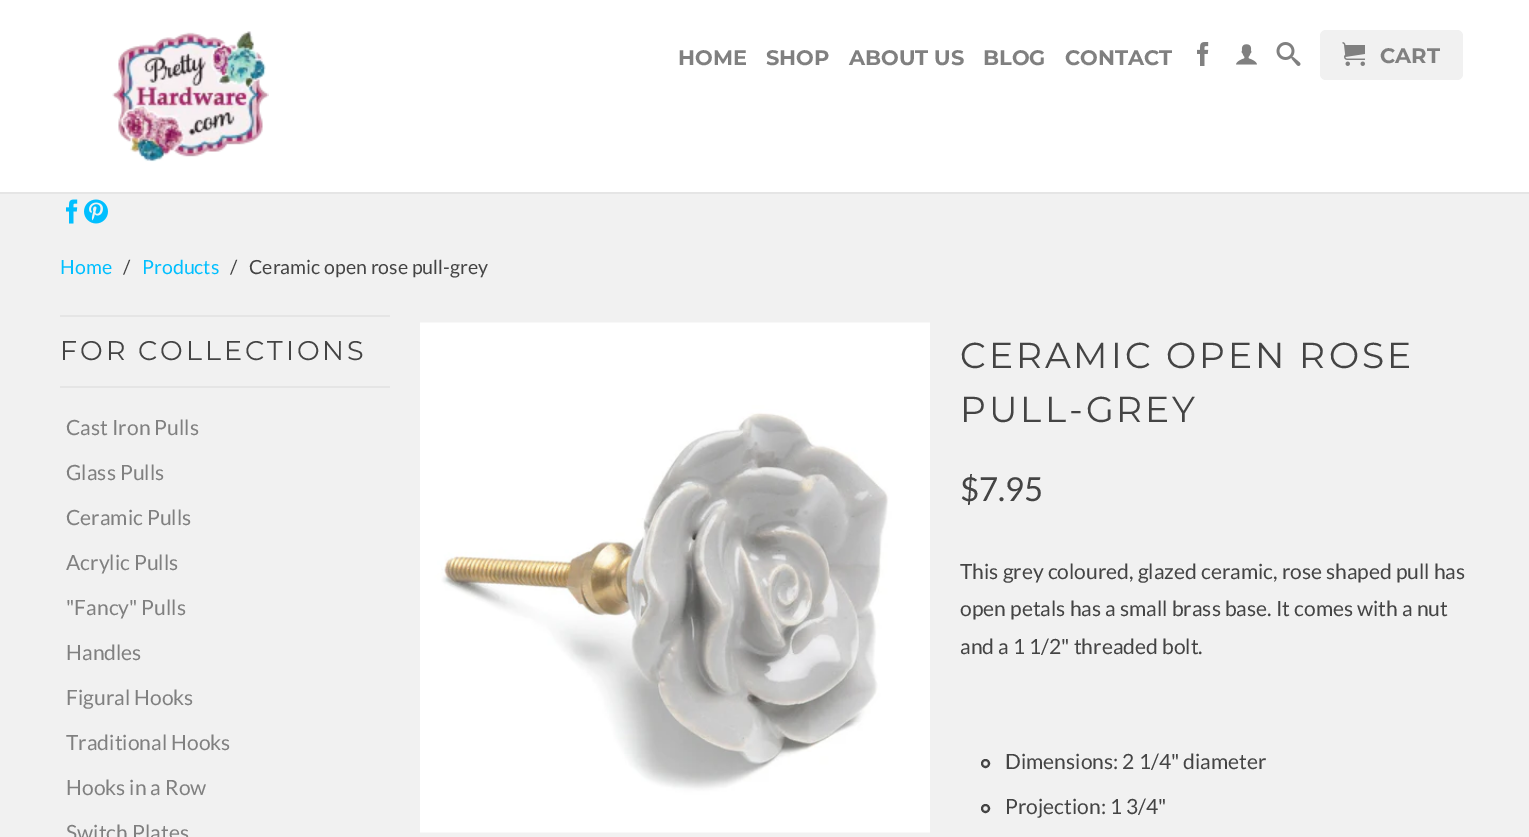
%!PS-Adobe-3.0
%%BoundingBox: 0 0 1529 837
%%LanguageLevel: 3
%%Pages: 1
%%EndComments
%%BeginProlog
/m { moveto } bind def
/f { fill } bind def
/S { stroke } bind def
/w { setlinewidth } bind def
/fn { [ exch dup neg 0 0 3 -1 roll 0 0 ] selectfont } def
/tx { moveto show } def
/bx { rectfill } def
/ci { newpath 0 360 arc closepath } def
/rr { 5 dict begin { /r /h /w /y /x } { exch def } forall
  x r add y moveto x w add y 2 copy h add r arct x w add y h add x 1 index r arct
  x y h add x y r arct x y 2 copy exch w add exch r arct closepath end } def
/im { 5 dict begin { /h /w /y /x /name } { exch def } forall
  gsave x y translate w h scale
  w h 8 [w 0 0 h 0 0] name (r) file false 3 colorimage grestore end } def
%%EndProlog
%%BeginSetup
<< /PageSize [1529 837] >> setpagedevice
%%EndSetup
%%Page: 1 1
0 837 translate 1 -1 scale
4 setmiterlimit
0.945 setgray
0 0 1529 837 bx
1 setgray
0 0 1529 192 bx
0.898 setgray
0 192 1529 2 bx
(image0.raw) 112 31 157 131 im
/Montserrat-Bold 21 fn
0.502 setgray
(HOME) 678 65 tx
(SHOP) 766 65 tx
(ABOUT US) 849 65 tx
(BLOG) 983 65 tx
(CONTACT) 1065 65 tx
(image1.raw) 1197 42 12 24 im
(image2.raw) 1236 44 21 21 im
(image3.raw) 1276 42 25 24 im
0.945 setgray
1320 30 143 50 6 rr f
(image4.raw) 1342 42 23 24 im
0.502 setgray
(CART) 1380 63 tx
(image5.raw) 66 199 12 25 im
(image6.raw) 84 199 24 25 im
/Lato-Regular 19.5 fn
0 0.749 1 setrgbcolor
(Home) 60 274 tx
0.267 setgray
(/) 123 274 tx
0 0.749 1 setrgbcolor
(Products) 142 274 tx
0.267 setgray
(/) 230 274 tx
(Ceramic open rose pull-grey) 249 274 tx
0.898 setgray
60 315 330 2 bx
60 386 330 2 bx
/Montserrat-Regular 27 fn
0.267 setgray
60 360 m 3 0 (FOR COLLECTIONS) ashow
/Lato-Regular 21 fn
0.502 setgray
(Cast Iron Pulls) 66 435 tx
(Glass Pulls) 66 480 tx
(Ceramic Pulls) 66 525 tx
(Acrylic Pulls) 66 570 tx
("Fancy" Pulls) 66 615 tx
(Handles) 66 660 tx
(Figural Hooks) 66 705 tx
(Traditional Hooks) 66 750 tx
(Hooks in a Row) 66 795 tx
(Switch Plates) 66 840 tx
(image7.raw) 420 322 510 511 im
/Montserrat-Regular 36 fn
0.267 setgray
960 368 m 3 0 (CERAMIC OPEN ROSE) ashow
960 422 m 3 0 (PULL-GREY) ashow
/Lato-Regular 33 fn
($7.95) 960 501 tx
/Lato-Regular 21 fn
(This grey coloured, glazed ceramic, rose shaped pull has) 960 579 tx
(open petals has a small brass base. It comes with a nut) 960 616 tx
(and a 1 1/2" threaded bolt.) 960 654 tx
2 w
985.5 763.5 3.5 ci S
(Dimensions: 2 1/4" diameter) 1005 769 tx
985.5 808.5 3.5 ci S
(Projection: 1 3/4") 1005 814 tx
showpage
%%EOF
